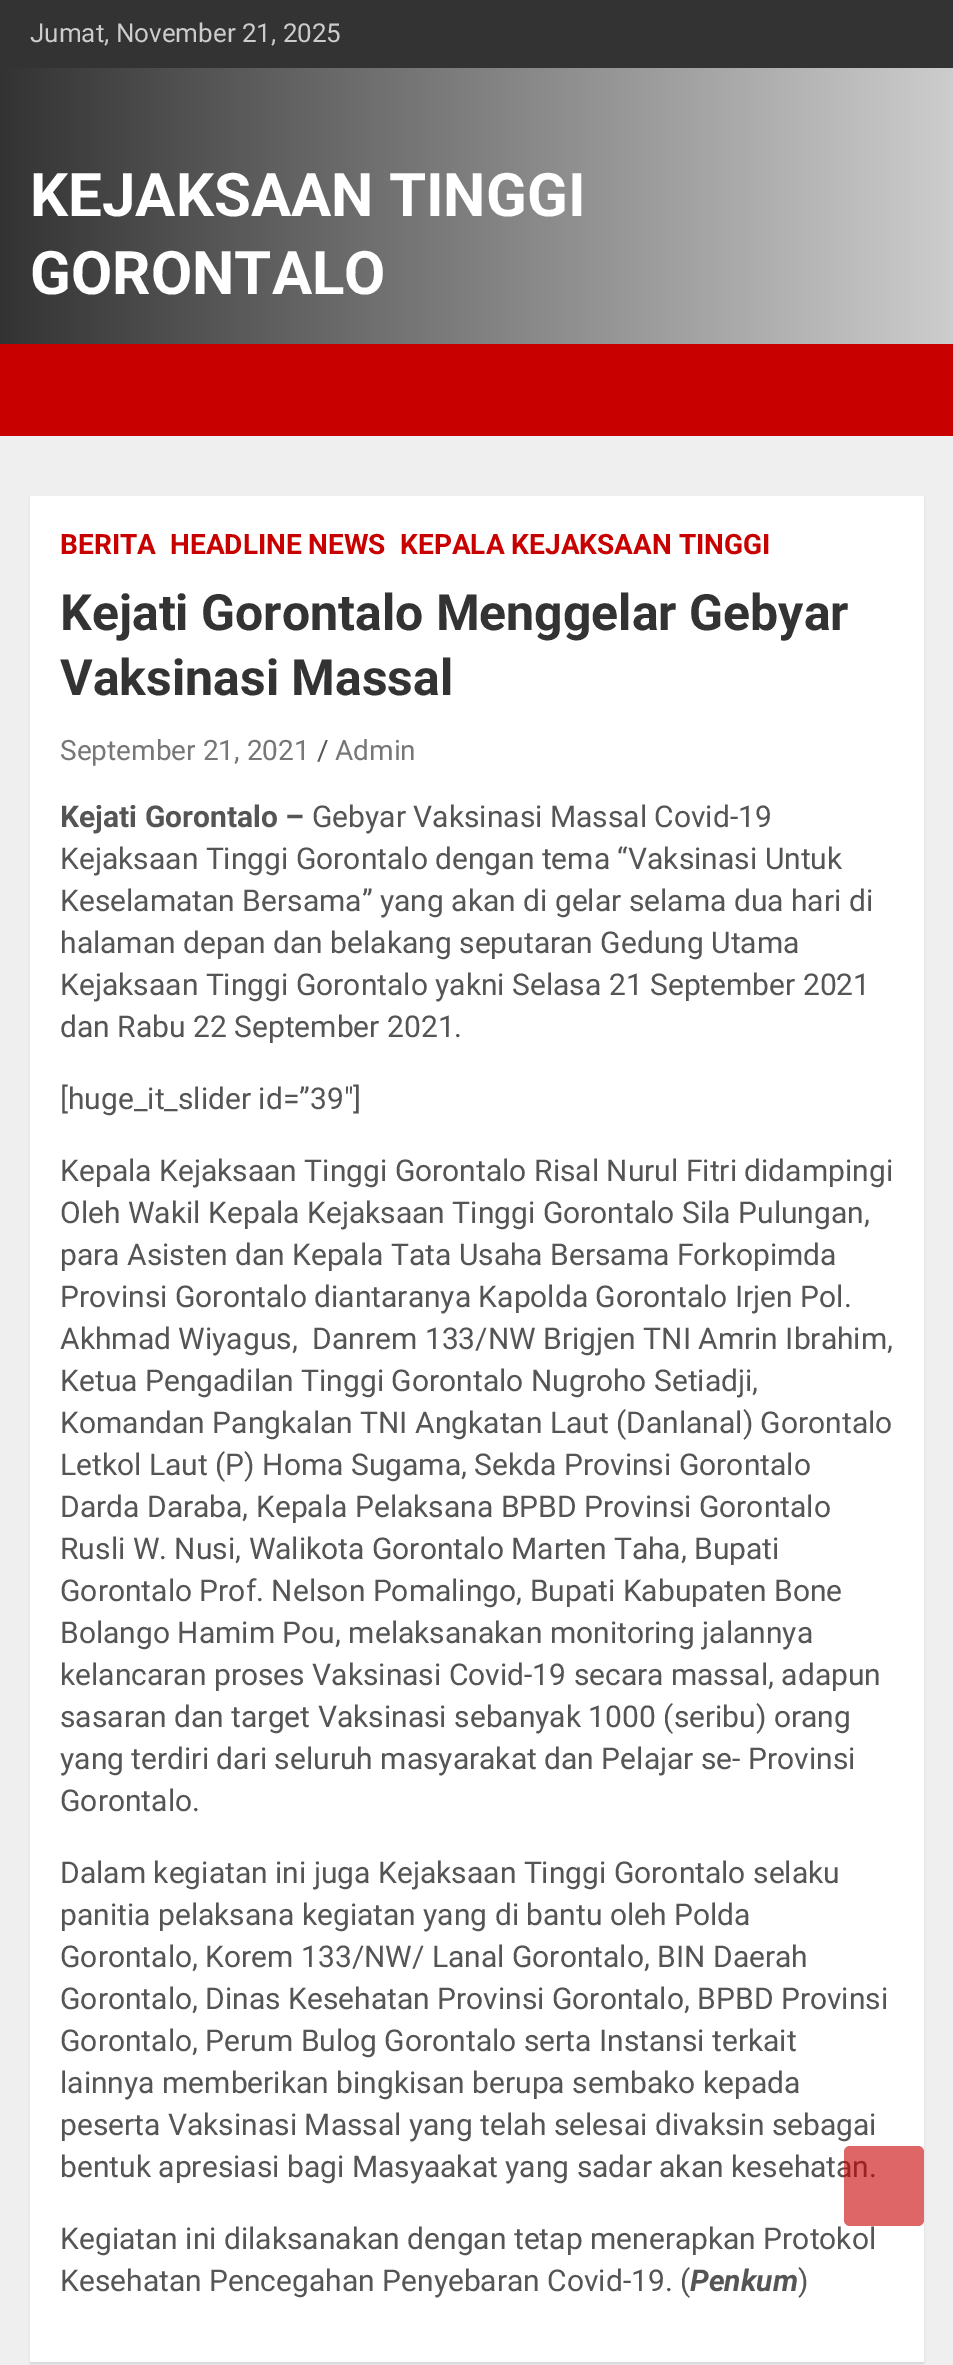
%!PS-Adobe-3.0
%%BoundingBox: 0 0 953 2365
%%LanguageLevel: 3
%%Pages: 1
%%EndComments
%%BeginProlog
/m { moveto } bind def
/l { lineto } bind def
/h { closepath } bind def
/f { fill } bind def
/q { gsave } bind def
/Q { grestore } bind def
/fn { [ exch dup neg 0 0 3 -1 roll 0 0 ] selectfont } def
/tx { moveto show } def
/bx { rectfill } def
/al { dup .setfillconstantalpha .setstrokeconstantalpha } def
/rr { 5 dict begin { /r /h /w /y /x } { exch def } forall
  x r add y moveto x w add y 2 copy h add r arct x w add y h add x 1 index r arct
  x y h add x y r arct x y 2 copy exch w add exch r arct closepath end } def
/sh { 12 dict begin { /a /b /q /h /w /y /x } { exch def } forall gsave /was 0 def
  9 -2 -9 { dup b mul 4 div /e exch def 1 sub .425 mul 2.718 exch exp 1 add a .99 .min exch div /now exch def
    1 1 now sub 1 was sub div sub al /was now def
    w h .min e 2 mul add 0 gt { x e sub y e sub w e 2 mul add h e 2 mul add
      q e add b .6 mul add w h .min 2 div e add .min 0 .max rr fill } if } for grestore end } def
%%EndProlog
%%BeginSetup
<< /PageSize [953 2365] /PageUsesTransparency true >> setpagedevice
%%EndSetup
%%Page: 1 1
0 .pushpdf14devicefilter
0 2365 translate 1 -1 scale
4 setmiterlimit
0.937 setgray
0 0 953 2365 bx
0.2 setgray
0 0 953 68 bx
/Roboto-Regular 26 fn
0.8 setgray
(Jumat, November 21, 2025) 30 42 tx
q 0 68 m 953 68 l 953 344 l 0 344 l h clip newpath
<< /ShadingType 2 /ColorSpace /DeviceRGB /Coords [0 206 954 206] /Extend [true true] /Function << /FunctionType 2 /Domain [0 1] /C0 [0.2 0.2 0.2] /C1 [0.804 0.804 0.804] /N 1 >> >> shfill Q
/Roboto-Bold 60 fn
1 setgray
(KEJAKSAAN TINGGI) 30 216 tx
(GORONTALO) 30 294 tx
0.784 0 0 setrgbcolor
0 344 953 92 bx
0 setgray
30 498 894 1866 0 1 0.1 sh
1 setgray
30 496 894 1866 bx
/Roboto-Bold 28 fn
0.784 0 0 setrgbcolor
(BERITA) 60 554 tx
(HEADLINE NEWS) 170 554 tx
(KEPALA KEJAKSAAN TINGGI) 400 554 tx
/Roboto-Bold 50 fn
0.2 setgray
(Kejati Gorontalo Menggelar Gebyar) 60 630 tx
(Vaksinasi Massal) 60 695 tx
/Roboto-Regular 28 fn
0.467 setgray
(September 21, 2021) 60 760 tx
0.333 setgray
(/) 317 760 tx
0.467 setgray
(Admin) 335 760 tx
/Roboto-Bold 30 fn
0.333 setgray
(Kejati Gorontalo –) 60 827 tx
/Roboto-Regular 30 fn
(Gebyar Vaksinasi Massal Covid-19) 312 827 tx
(Kejaksaan Tinggi Gorontalo dengan tema “Vaksinasi Untuk) 60 869 tx
(Keselamatan Bersama” yang akan di gelar selama dua hari di) 60 911 tx
(halaman depan dan belakang seputaran Gedung Utama) 60 953 tx
(Kejaksaan Tinggi Gorontalo yakni Selasa 21 September 2021) 60 995 tx
(dan Rabu 22 September 2021.) 60 1037 tx
([huge_it_slider id=”39″]) 60 1109 tx
(Kepala Kejaksaan Tinggi Gorontalo Risal Nurul Fitri didampingi) 60 1181 tx
(Oleh Wakil Kepala Kejaksaan Tinggi Gorontalo Sila Pulungan,) 60 1223 tx
(para Asisten dan Kepala Tata Usaha Bersama Forkopimda) 60 1265 tx
(Provinsi Gorontalo diantaranya Kapolda Gorontalo Irjen Pol.) 60 1307 tx
(Akhmad Wiyagus,  Danrem 133/NW Brigjen TNI Amrin Ibrahim,) 60 1349 tx
(Ketua Pengadilan Tinggi Gorontalo Nugroho Setiadji,) 60 1391 tx
(Komandan Pangkalan TNI Angkatan Laut \(Danlanal\) Gorontalo) 60 1433 tx
(Letkol Laut \(P\) Homa Sugama, Sekda Provinsi Gorontalo) 60 1475 tx
(Darda Daraba, Kepala Pelaksana BPBD Provinsi Gorontalo) 60 1517 tx
(Rusli W. Nusi, Walikota Gorontalo Marten Taha, Bupati) 60 1559 tx
(Gorontalo Prof. Nelson Pomalingo, Bupati Kabupaten Bone) 60 1601 tx
(Bolango Hamim Pou, melaksanakan monitoring jalannya) 60 1643 tx
(kelancaran proses Vaksinasi Covid-19 secara massal, adapun) 60 1685 tx
(sasaran dan target Vaksinasi sebanyak 1000 \(seribu\) orang) 60 1727 tx
(yang terdiri dari seluruh masyarakat dan Pelajar se- Provinsi) 60 1769 tx
(Gorontalo.) 60 1811 tx
(Dalam kegiatan ini juga Kejaksaan Tinggi Gorontalo selaku) 60 1883 tx
(panitia pelaksana kegiatan yang di bantu oleh Polda) 60 1925 tx
(Gorontalo, Korem 133/NW/ Lanal Gorontalo, BIN Daerah) 60 1967 tx
(Gorontalo, Dinas Kesehatan Provinsi Gorontalo, BPBD Provinsi) 60 2009 tx
(Gorontalo, Perum Bulog Gorontalo serta Instansi terkait) 60 2051 tx
(lainnya memberikan bingkisan berupa sembako kepada) 60 2093 tx
(peserta Vaksinasi Massal yang telah selesai divaksin sebagai) 60 2135 tx
(bentuk apresiasi bagi Masyaakat yang sadar akan kesehatan.) 60 2177 tx
(Kegiatan ini dilaksanakan dengan tetap menerapkan Protokol) 60 2249 tx
(Kesehatan Pencegahan Penyebaran Covid-19. \() 60 2291 tx
/Roboto-BoldItalic 30 fn
(Penkum) 690 2291 tx
/Roboto-Regular 30 fn
(\)) 798 2291 tx
0.6 al
0.784 0 0 setrgbcolor
844 2146 80 80 6 rr f
.poppdf14devicefilter showpage
%%EOF
